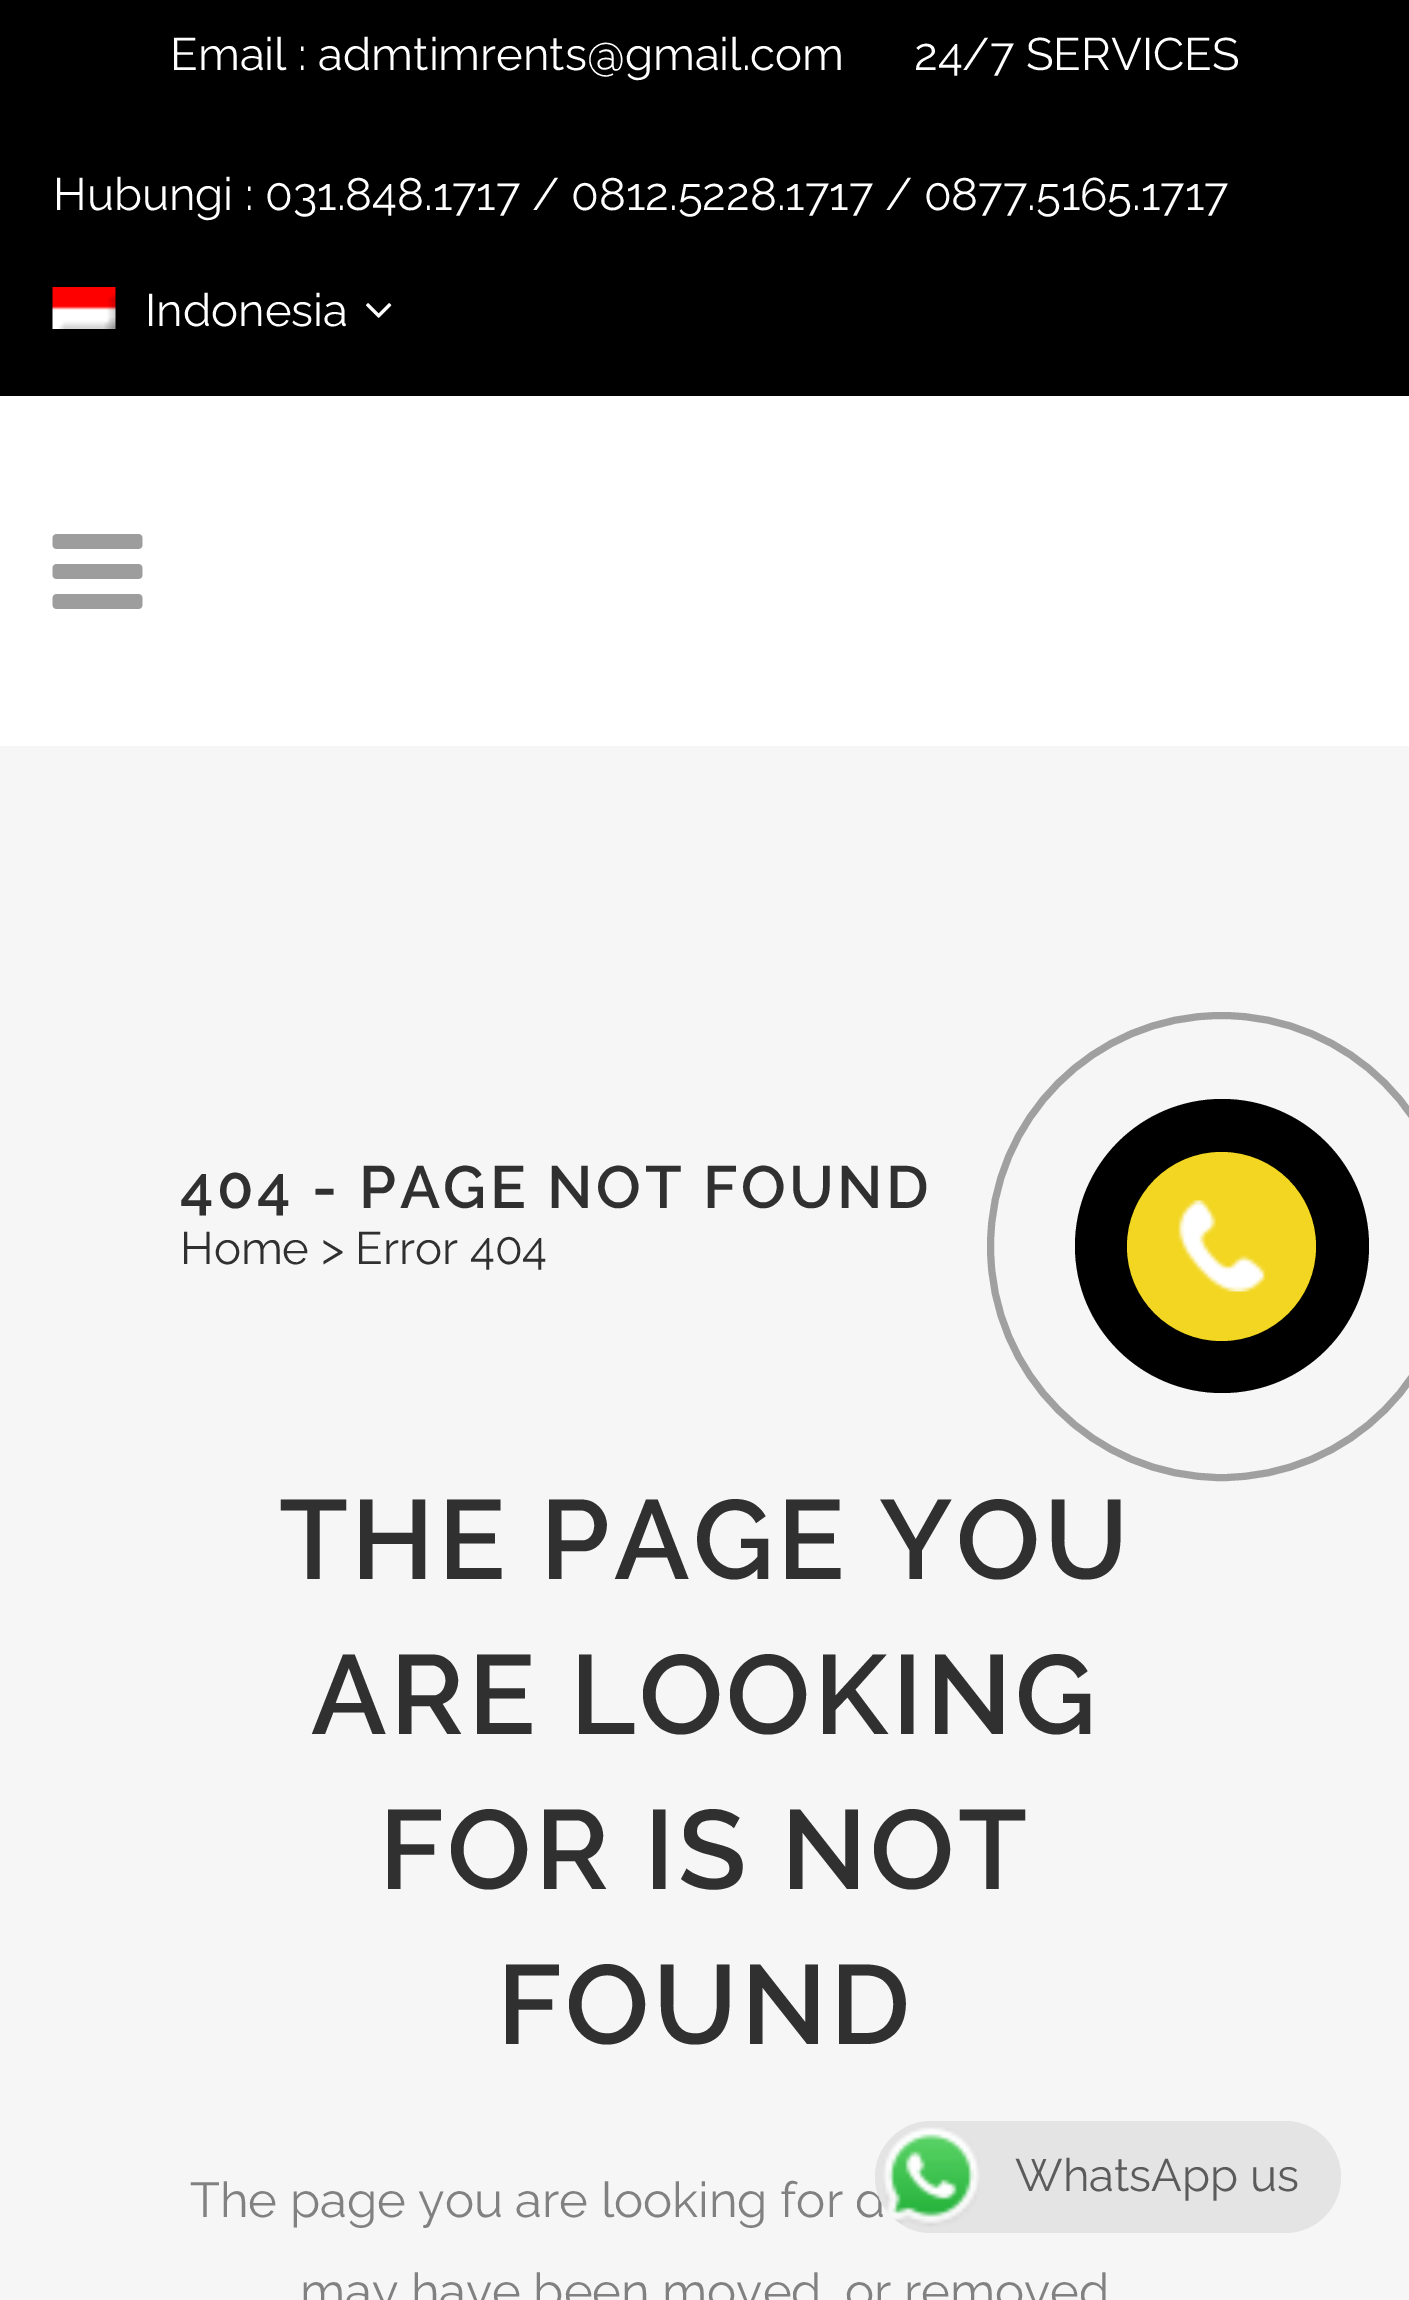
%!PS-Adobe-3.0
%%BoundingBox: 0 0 1409 2300
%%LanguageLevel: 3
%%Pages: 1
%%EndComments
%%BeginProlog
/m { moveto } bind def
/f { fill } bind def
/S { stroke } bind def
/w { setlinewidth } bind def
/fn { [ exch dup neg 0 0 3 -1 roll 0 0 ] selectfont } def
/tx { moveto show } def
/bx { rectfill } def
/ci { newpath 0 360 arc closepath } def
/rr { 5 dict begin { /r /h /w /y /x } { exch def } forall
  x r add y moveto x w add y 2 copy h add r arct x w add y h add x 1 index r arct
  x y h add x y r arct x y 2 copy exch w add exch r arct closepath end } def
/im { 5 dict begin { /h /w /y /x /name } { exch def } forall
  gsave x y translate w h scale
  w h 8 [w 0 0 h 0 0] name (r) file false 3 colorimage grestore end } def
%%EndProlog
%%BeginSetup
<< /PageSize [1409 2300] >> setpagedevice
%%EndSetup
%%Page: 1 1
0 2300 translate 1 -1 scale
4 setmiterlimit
0.965 setgray
0 0 1409 2300 bx
0 setgray
0 0 1409 396 bx
/Raleway-Regular 45.5 fn
1 setgray
(Email : admtimrents@gmail.com      24/7 SERVICES) 170 70 tx
(Hubungi : 031.848.1717 / 0812.5228.1717 / 0877.5165.1717) 53 210 tx
(image0.raw) 52 287 64 42 im
(Indonesia) 145 326 tx
(image1.raw) 366 303 26 15 im
0 396 1409 350 bx
(image2.raw) 52 534 91 75 im
/Raleway-SemiBold 59.5 fn
0.188 setgray
180 1208 m 3.5 0 (404 - PAGE NOT FOUND) ashow
/Raleway-Regular 45.5 fn
(Home > Error 404) 180 1264 tx
/Raleway-SemiBold 112 fn
279 1579 m 3.5 0 (THE PAGE YOU) ashow
311 1734 m 3.5 0 (ARE LOOKING) ashow
379 1889 m 3.5 0 (FOR IS NOT) ashow
497 2044 m 3.5 0 (FOUND) ashow
/Raleway-Regular 49 fn
0.506 setgray
(The page you are looking for d) 190 2217 tx
(may have been moved, or removed) 300 2308 tx
0.627 setgray
7 w
1221.5 1246.5 231 ci S
0 setgray
1222 1246 147 ci f
0.949 0.839 0.129 setrgbcolor
1221.5 1246.5 94.5 ci f
(image3.raw) 1178 1200 87 92 im
0.894 setgray
875 2121 466 112 56 rr f
(image4.raw) 883 2127 97 100 im
/Raleway-Regular 45.5 fn
0.357 setgray
(WhatsApp us) 1015 2191 tx
showpage
%%EOF
